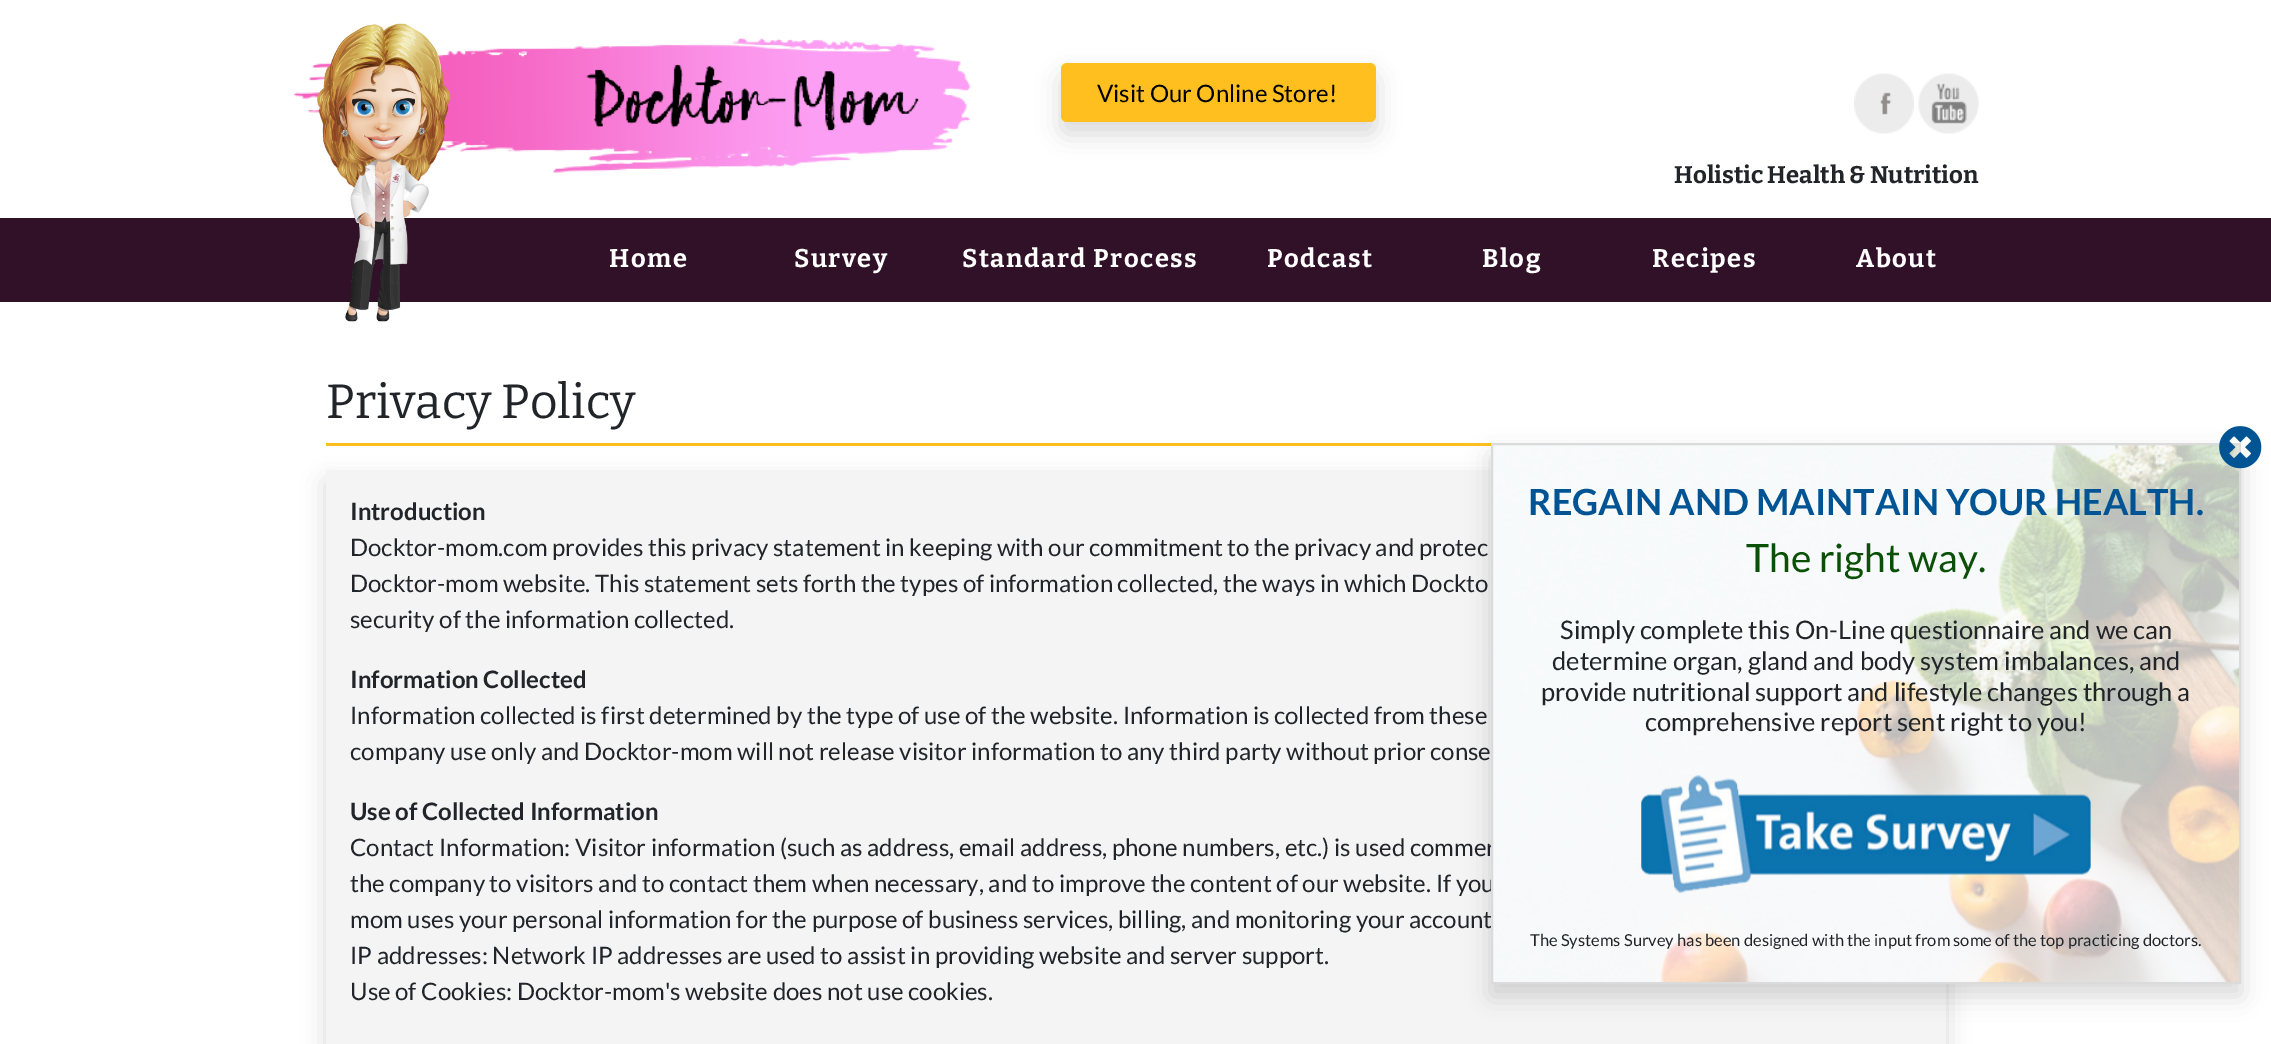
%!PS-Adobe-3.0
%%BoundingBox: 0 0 2271 1044
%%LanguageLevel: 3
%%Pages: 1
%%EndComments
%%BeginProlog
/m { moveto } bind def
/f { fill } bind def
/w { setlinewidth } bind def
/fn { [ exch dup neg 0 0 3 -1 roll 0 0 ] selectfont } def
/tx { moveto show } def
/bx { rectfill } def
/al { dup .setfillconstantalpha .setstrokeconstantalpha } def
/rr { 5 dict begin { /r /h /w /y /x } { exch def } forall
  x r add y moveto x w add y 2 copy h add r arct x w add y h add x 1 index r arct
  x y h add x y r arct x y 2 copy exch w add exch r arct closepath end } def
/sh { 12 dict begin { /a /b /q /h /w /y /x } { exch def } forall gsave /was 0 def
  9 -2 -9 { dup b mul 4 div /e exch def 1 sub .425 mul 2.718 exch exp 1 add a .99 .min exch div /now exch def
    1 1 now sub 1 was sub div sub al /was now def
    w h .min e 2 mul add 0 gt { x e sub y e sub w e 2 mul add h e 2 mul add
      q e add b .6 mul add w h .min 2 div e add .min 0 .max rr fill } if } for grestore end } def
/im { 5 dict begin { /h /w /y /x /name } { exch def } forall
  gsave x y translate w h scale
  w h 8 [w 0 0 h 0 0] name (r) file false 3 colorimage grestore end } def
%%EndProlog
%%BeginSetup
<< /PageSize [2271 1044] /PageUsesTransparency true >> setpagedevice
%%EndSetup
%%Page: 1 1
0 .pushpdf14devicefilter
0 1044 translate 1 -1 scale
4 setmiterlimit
1 setgray
0 0 2271 1044 bx
(image1.raw) 293 38 678 135 im
0.192 0.067 0.153 setrgbcolor
0 218 2271 84 bx
(image0.raw) 317 23 134 299 im
0 setgray
1061 75 315 59 6 12 0.15 sh
1 0.753 0.122 setrgbcolor
1061 63 315 59 6 rr f
/Lato-Regular 24 fn
0 setgray
(Visit Our Online Store!) 1097 102 tx
(image2.raw) 1854 73 60 61 im
(image3.raw) 1918 73 61 61 im
/Bitter-Bold 24 fn
0.129 0.145 0.161 setrgbcolor
(Holistic Health & Nutrition) 1674 183 tx
/Bitter-Bold 25.5 fn
1 setgray
609 267 m 1.5 0 (Home) ashow
794 267 m 1.5 0 (Survey) ashow
962 267 m 1.5 0 (Standard Process) ashow
1267 267 m 1.5 0 (Podcast) ashow
1482 267 m 1.5 0 (Blog) ashow
1652 267 m 1.5 0 (Recipes) ashow
1856 267 m 1.5 0 (About) ashow
/Bitter-Regular 48 fn
0.129 0.145 0.161 setrgbcolor
(Privacy Policy) 326 418 tx
1 0.753 0.122 setrgbcolor
326 443 1165 3 bx
0 setgray
326 482 1620 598 0 12 0.15 sh
0.957 setgray
326 470 1620 574 bx
/Lato-Bold 24 fn
0.129 0.145 0.161 setrgbcolor
(Introduction) 350 520 tx
/Lato-Regular 24 fn
(Docktor-mom.com provides this privacy statement in keeping with our commitment to the privacy and protec) 350 556 tx
(Docktor-mom website. This statement sets forth the types of information collected, the ways in which Dockto) 350 592 tx
(security of the information collected.) 350 628 tx
/Lato-Bold 24 fn
(Information Collected) 350 688 tx
/Lato-Regular 24 fn
(Information collected is first determined by the type of use of the website. Information is collected from these) 350 724 tx
(company use only and Docktor-mom will not release visitor information to any third party without prior conse) 350 760 tx
/Lato-Bold 24 fn
(Use of Collected Information) 350 820 tx
/Lato-Regular 24 fn
(Contact Information: Visitor information \(such as address, email address, phone numbers, etc.\) is used commer) 350 856 tx
(the company to visitors and to contact them when necessary, and to improve the content of our website. If you) 350 892 tx
(mom uses your personal information for the purpose of business services, billing, and monitoring your account) 350 928 tx
(IP addresses: Network IP addresses are used to assist in providing website and server support.) 350 964 tx
(Use of Cookies: Docktor-mom's website does not use cookies.) 350 1000 tx
0 setgray
1491 455 750 541 0 12 0.15 sh
(image4.raw) 1493 445 746 537 im
0.859 setgray
2 w
1492 444 748 539 rectstroke
(image5.raw) 2219 426 43 43 im
/Lato-Bold 36 fn
0 0.329 0.576 setrgbcolor
(REGAIN AND MAINTAIN YOUR HEALTH.) 1528 515 tx
/Lato-Regular 39 fn
0.039 0.318 0.027 setrgbcolor
(The right way.) 1746 572 tx
/Lato-Regular 25.5 fn
0.129 0.145 0.161 setrgbcolor
(Simply complete this On-Line questionnaire and we can) 1560 639 tx
(determine organ, gland and body system imbalances, and) 1552 670 tx
(provide nutritional support and lifestyle changes through a) 1541 701 tx
(comprehensive report sent right to you!) 1645 731 tx
(image6.raw) 1641 775 450 118 im
/Lato-Regular 16.5 fn
(The Systems Survey has been designed with the input from some of the top practicing doctors.) 1530 946 tx
.poppdf14devicefilter showpage
%%EOF
